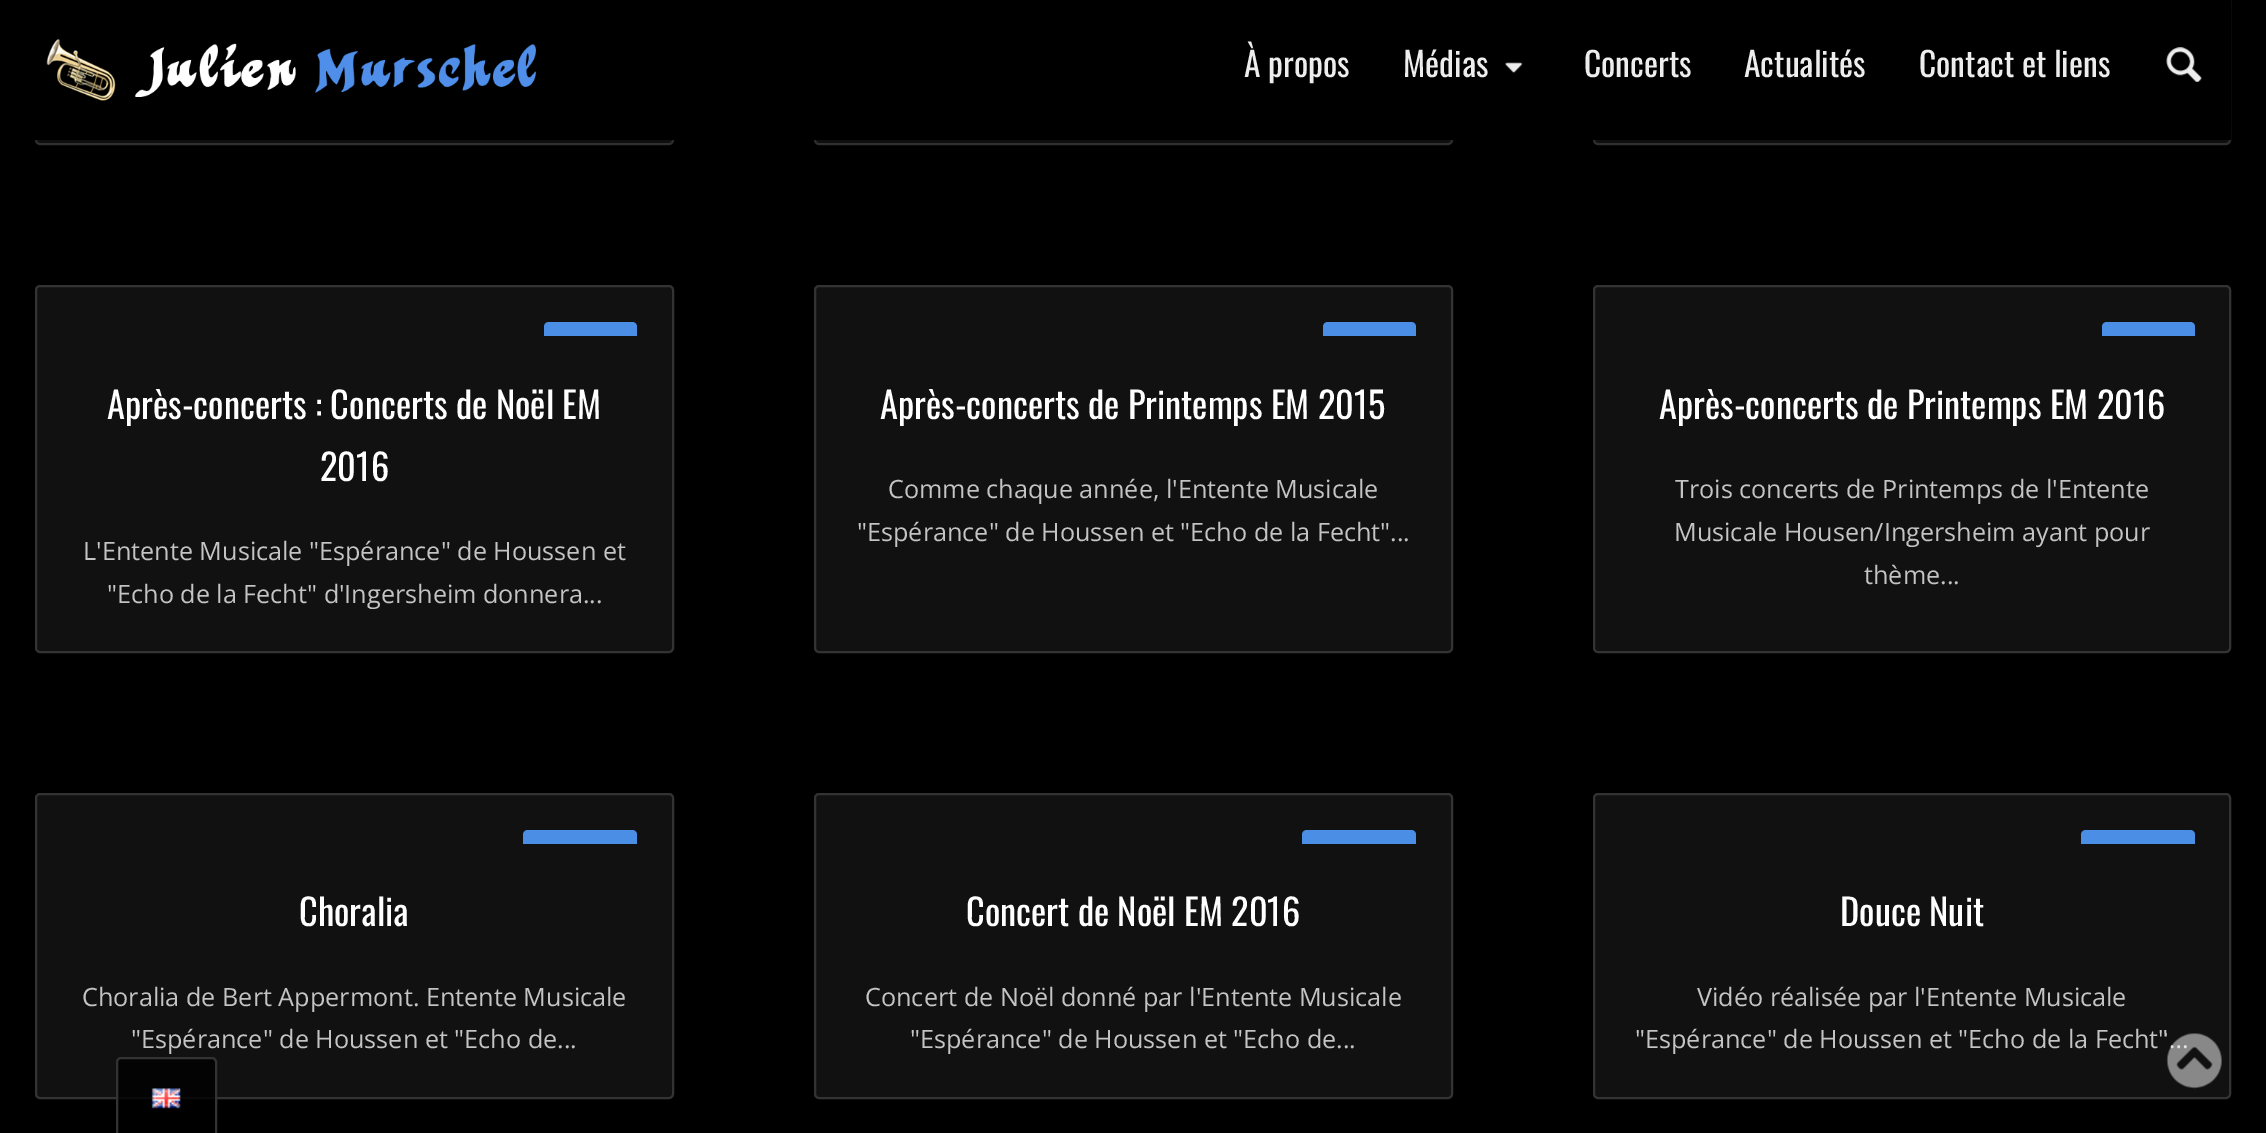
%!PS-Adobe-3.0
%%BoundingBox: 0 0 2266 1133
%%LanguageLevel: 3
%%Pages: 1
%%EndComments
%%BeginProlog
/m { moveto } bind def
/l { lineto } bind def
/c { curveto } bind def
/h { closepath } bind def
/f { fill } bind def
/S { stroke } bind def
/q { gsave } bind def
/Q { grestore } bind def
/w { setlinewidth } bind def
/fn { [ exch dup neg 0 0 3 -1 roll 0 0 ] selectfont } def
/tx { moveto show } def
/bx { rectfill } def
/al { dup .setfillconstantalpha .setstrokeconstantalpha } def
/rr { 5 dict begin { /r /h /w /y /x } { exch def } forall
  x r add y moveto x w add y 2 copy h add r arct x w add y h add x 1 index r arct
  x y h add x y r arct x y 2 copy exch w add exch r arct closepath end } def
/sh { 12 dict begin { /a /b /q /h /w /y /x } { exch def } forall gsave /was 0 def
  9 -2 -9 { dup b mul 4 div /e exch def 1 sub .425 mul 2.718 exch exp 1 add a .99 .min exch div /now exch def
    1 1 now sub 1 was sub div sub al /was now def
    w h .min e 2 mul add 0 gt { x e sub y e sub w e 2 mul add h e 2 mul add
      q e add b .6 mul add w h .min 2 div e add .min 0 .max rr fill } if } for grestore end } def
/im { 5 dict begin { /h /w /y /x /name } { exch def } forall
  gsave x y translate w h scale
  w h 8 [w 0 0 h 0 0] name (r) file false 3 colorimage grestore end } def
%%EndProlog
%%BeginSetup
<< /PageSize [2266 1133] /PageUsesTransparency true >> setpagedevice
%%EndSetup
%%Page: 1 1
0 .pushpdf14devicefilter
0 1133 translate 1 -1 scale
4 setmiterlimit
0 setgray
0 0 2266 1133 bx
0.067 setgray
36 -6 637 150 4 rr q f Q
0.2 setgray
2 w
S
0.067 setgray
815 -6 637 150 4 rr q f Q
0.2 setgray
S
0.067 setgray
1594 -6 636 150 4 rr q f Q
0.2 setgray
S
0 setgray
5 0 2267 140 0 9 0.3 sh
35 0 2196 140 bx
(image0.raw) 46 38 490 63 im
/Oswald-Regular 33.5 fn
0.929 setgray
(À propos) 1244 77 tx
(Médias) 1403 77 tx
(image1.raw) 1505 62 18 11 im
(Concerts) 1584 77 tx
(Actualités) 1744 77 tx
(Contact et liens) 1919 77 tx
(image2.raw) 2166 47 36 35 im
0.067 setgray
36 286 637 366 4 rr q f Q
0.2 setgray
S
0.294 0.557 0.898 setrgbcolor
549 322 m 632 322 l 635 322 637 324 637 327 c 637 336 l 544 336 l 544 327 l 544 324 546 322 549 322 c h f
/Oswald-Regular 36.4 fn
1 setgray
(Après-concerts : Concerts de Noël EM) 107 419 tx
(2016) 320 481 tx
/OpenSans-Regular 25.2 fn
0.769 setgray
(L'Entente Musicale "Espérance" de Houssen et) 83 560 tx
("Echo de la Fecht" d'Ingersheim donnera...) 107 603 tx
0.067 setgray
815 286 637 366 4 rr q f Q
0.2 setgray
S
0.294 0.557 0.898 setrgbcolor
1328 322 m 1411 322 l 1414 322 1416 324 1416 327 c 1416 336 l 1323 336 l 1323 327 l 1323 324 1325 322 1328 322 c h f
/Oswald-Regular 36.4 fn
1 setgray
(Après-concerts de Printemps EM 2015) 880 419 tx
/OpenSans-Regular 25.2 fn
0.769 setgray
(Comme chaque année, l'Entente Musicale) 888 498 tx
("Espérance" de Houssen et "Echo de la Fecht"...) 857 541 tx
0.067 setgray
1594 286 636 366 4 rr q f Q
0.2 setgray
S
0.294 0.557 0.898 setrgbcolor
2107 322 m 2190 322 l 2193 322 2195 324 2195 327 c 2195 336 l 2102 336 l 2102 327 l 2102 324 2104 322 2107 322 c h f
/Oswald-Regular 36.4 fn
1 setgray
(Après-concerts de Printemps EM 2016) 1659 419 tx
/OpenSans-Regular 25.2 fn
0.769 setgray
(Trois concerts de Printemps de l'Entente) 1675 498 tx
(Musicale Housen/Ingersheim ayant pour) 1674 541 tx
(thème...) 1864 584 tx
0.067 setgray
36 794 637 304 4 rr q f Q
0.2 setgray
S
0.294 0.557 0.898 setrgbcolor
528 830 m 632 830 l 635 830 637 832 637 835 c 637 844 l 523 844 l 523 835 l 523 832 525 830 528 830 c h f
/Oswald-Regular 36.4 fn
1 setgray
(Choralia) 299 926 tx
/OpenSans-Regular 25.2 fn
0.769 setgray
(Choralia de Bert Appermont. Entente Musicale) 82 1006 tx
("Espérance" de Houssen et "Echo de...) 131 1048 tx
0.067 setgray
815 794 637 304 4 rr q f Q
0.2 setgray
S
0.294 0.557 0.898 setrgbcolor
1307 830 m 1411 830 l 1414 830 1416 832 1416 835 c 1416 844 l 1302 844 l 1302 835 l 1302 832 1304 830 1307 830 c h f
/Oswald-Regular 36.4 fn
1 setgray
(Concert de Noël EM 2016) 966 926 tx
/OpenSans-Regular 25.2 fn
0.769 setgray
(Concert de Noël donné par l'Entente Musicale) 865 1006 tx
("Espérance" de Houssen et "Echo de...) 910 1048 tx
0.067 setgray
1594 794 636 304 4 rr q f Q
0.2 setgray
S
0.294 0.557 0.898 setrgbcolor
2086 830 m 2190 830 l 2193 830 2195 832 2195 835 c 2195 844 l 2081 844 l 2081 835 l 2081 832 2083 830 2086 830 c h f
/Oswald-Regular 36.4 fn
1 setgray
(Douce Nuit) 1840 926 tx
/OpenSans-Regular 25.2 fn
0.769 setgray
(Vidéo réalisée par l'Entente Musicale) 1697 1006 tx
("Espérance" de Houssen et "Echo de la Fecht"...) 1635 1048 tx
0.8 al
0 setgray
121 1058 m 212 1058 l 214 1058 216 1060 216 1062 c 216 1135 l 117 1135 l 117 1062 l 117 1060 119 1058 121 1058 c h f
1 al
0.2 setgray
121 1058 m 212 1058 l 214 1058 216 1060 216 1062 c 216 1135 l 117 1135 l 117 1062 l 117 1060 119 1058 121 1058 c h S
(image3.raw) 151 1088 30 21 im
(image4.raw) 2166 1033 56 56 im
.poppdf14devicefilter showpage
%%EOF
